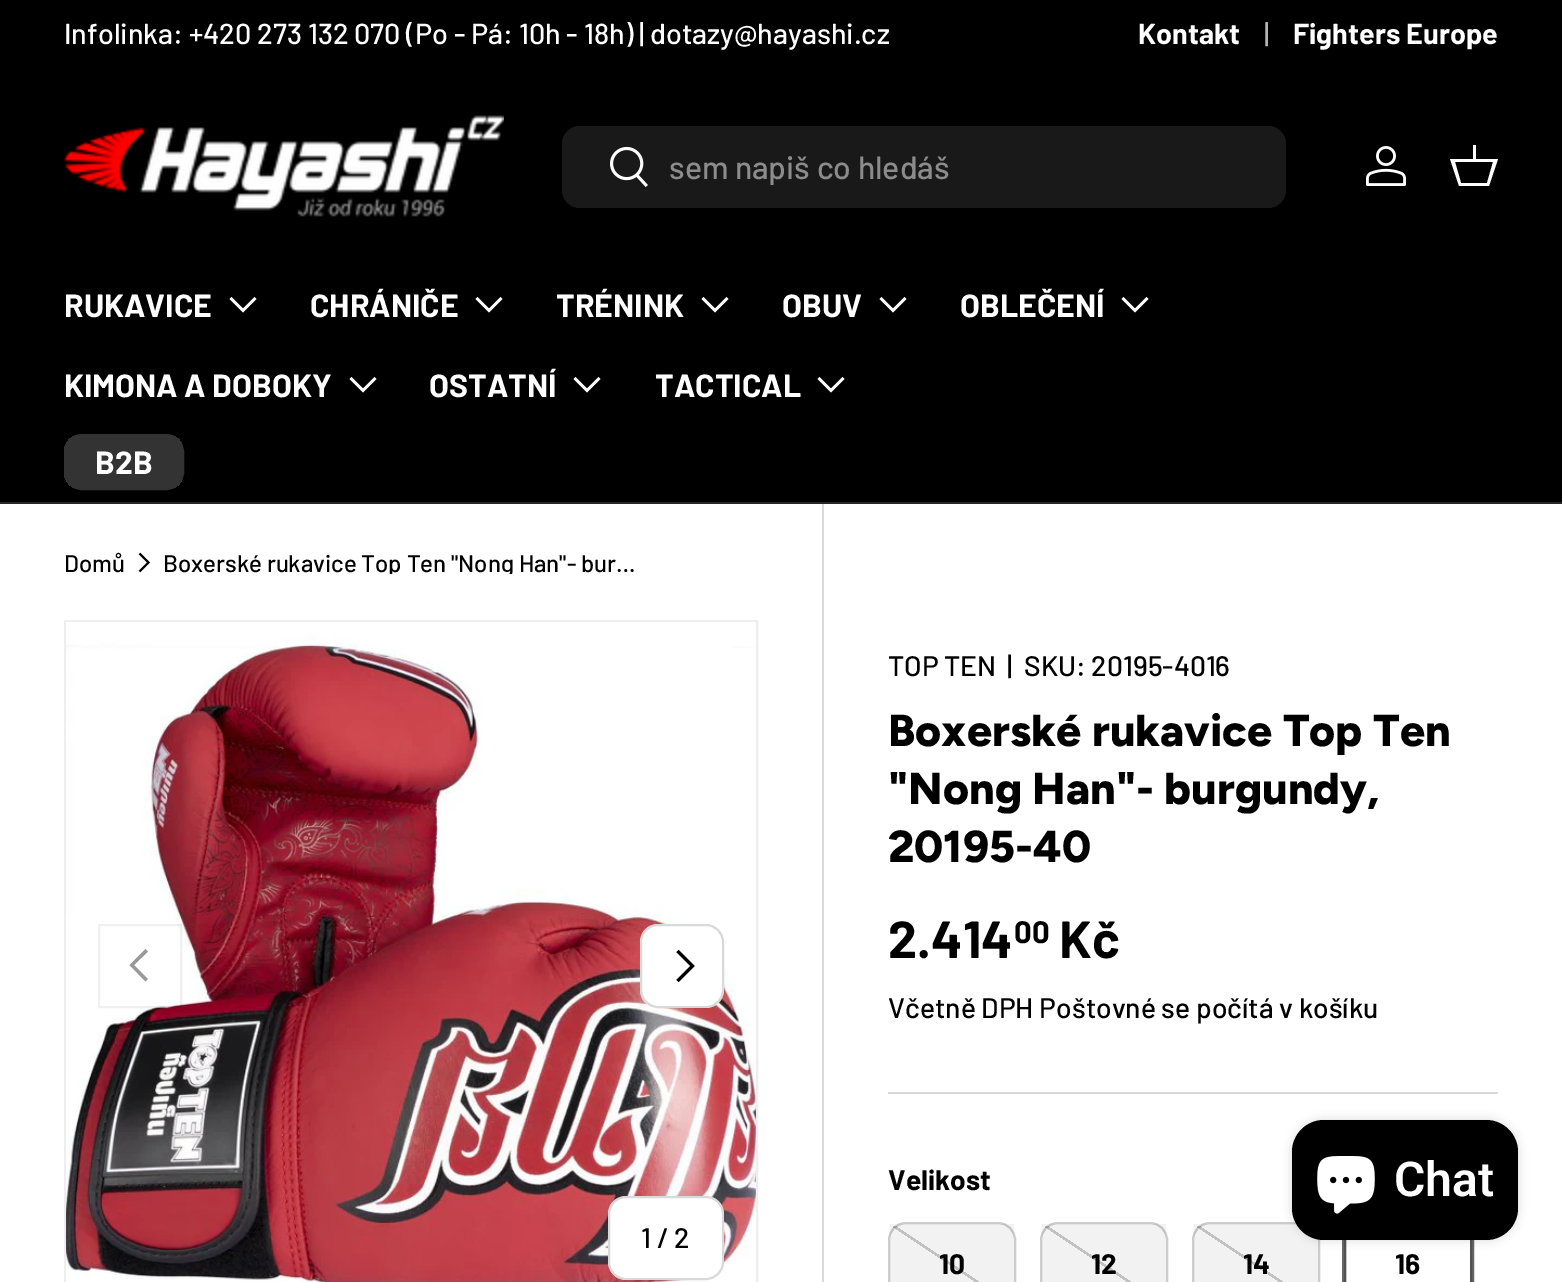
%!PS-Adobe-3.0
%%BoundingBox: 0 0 1562 1282
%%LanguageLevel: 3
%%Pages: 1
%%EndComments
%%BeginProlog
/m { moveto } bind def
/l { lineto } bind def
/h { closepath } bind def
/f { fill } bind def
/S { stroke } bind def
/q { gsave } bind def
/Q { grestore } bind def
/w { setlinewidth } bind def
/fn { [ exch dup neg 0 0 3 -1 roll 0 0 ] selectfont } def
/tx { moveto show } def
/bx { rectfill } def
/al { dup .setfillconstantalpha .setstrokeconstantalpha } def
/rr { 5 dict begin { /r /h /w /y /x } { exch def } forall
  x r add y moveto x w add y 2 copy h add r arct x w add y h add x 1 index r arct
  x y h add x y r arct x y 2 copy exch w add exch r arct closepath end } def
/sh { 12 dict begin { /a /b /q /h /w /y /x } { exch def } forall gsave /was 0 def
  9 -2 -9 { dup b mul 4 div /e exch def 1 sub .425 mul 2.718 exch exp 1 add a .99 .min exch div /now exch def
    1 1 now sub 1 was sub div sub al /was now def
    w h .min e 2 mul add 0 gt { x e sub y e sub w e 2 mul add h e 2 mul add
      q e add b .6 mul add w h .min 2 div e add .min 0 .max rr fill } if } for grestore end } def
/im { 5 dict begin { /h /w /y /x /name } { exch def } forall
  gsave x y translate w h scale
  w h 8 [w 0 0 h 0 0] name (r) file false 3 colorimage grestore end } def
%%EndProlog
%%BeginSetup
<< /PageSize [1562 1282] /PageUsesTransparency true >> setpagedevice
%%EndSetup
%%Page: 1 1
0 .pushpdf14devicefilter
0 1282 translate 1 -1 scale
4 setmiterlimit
1 setgray
0 0 1562 1282 bx
0 setgray
0 0 1562 502 bx
/Barlow-Medium 28.8 fn
1 setgray
(Infolinka: +420 273 132 070 \(Po - Pá: 10h - 18h\) | dotazy@hayashi.cz) 64 44 tx
/Barlow-Bold 28.8 fn
(Kontakt) 1138 44 tx
/Barlow-Medium 28.8 fn
0.702 setgray
(|) 1264 44 tx
/Barlow-Bold 28.8 fn
1 setgray
(Fighters Europe) 1293 44 tx
0.149 setgray
0 502 1562 2 bx
(image0.raw) 64 115 440 102 im
0.098 setgray
562 126 724 82 18 rr f
(image1.raw) 610 146 38 41 im
/Barlow-Medium 32 fn
0.549 setgray
(sem napiš co hledáš) 669 179 tx
(image2.raw) 1366 146 40 40 im
1 setgray
1473 159 m 1473 145 l 1476 145 l 1476 159 l 1498 159 l 1489 186 l 1459 186 l 1450 159 l h 1455 162 m 1461 183 l 1487 183 l 1493 162 l h f
/Barlow-Bold 32 fn
(RUKAVICE) 64 317 tx
2.5 w
255.5 298 m 243 310.5 l 230.5 298 l S
(CHRÁNIČE) 310 317 tx
501.5 298 m 489 310.5 l 476.5 298 l S
(TRÉNINK) 556 317 tx
727.5 298 m 715 310.5 l 702.5 298 l S
(OBUV) 782 317 tx
905.5 298 m 893 310.5 l 880.5 298 l S
(OBLEČENÍ) 960 317 tx
1147.5 298 m 1135 310.5 l 1122.5 298 l S
(KIMONA A DOBOKY) 64 397 tx
375.5 378 m 363 390.5 l 350.5 378 l S
(OSTATNÍ) 429 397 tx
599.5 378 m 587 390.5 l 574.5 378 l S
(TACTICAL) 655 397 tx
843.5 378 m 831 390.5 l 818.5 378 l S
q
64 434 120 56 18 rr clip newpath
q 64 436 m 182 436 l 182 488 l 64 488 l h clip newpath
<< /ShadingType 2 /ColorSpace /DeviceRGB /Coords [-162 420 178 504] /Extend [true true] /Function << /FunctionType 3 /Domain [0 1] /Functions [<< /FunctionType 2 /Domain [0 1] /C0 [0.353 0.353 0.353] /C1 [0.353 0.353 0.353] /N 1 >> << /FunctionType 2 /Domain [0 1] /C0 [0.2 0.2 0.2] /C1 [0.2 0.2 0.2] /N 1 >>] /Bounds [0.6] /Encode [0 1 0 1] >> >> shfill Q
Q
0.2 setgray
2 w
65 435 118 54 17 rr S
1 setgray
(B2B) 95 474 tx
/Barlow-Medium 24 fn
0 setgray
(Domů) 64 572 tx
1.8 w
139.5 553.5 m 148.5 562.5 l 139.5 571.5 l S
q
162 550 480 24 rectclip
(Boxerské rukavice Top Ten "Nong Han"- bur…) 163 572 tx
Q
0.933 setgray
2 w
65 621 692 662 rectstroke
(image3.raw) 66 622 690 660 im
0.4 al
1 setgray
98 924 84 84 18 rr f
0.06 al
0 setgray
99 925 82 82 rectstroke
1 al
0.6 setgray
129.5 965 m 145.5 949 l 148 951.5 l 134 965 l 148 979 l 145.5 981.5 l h f
1 setgray
640 924 84 84 18 rr f
0.15 al
0 setgray
641 925 82 82 17 rr S
1 al
3 w
677.5 951 m 692.5 966 l 677.5 981 l S
1 setgray
608 1196 116 84 18 rr f
0.15 al
0 setgray
2 w
609 1197 114 82 17 rr S
/Barlow-Medium 28.2 fn
1 al
(1 / 2) 641 1248 tx
0.851 setgray
822 504 2 778 bx
0 setgray
(TOP TEN) 888 676 tx
(|) 1007 676 tx
(SKU: 20195-4016) 1024 676 tx
/Figtree-ExtraBold 44.75 fn
(Boxerské rukavice Top Ten) 888 746 tx
("Nong Han"- burgundy,) 888 804 tx
(20195-40) 888 862 tx
/Barlow-Bold 52 fn
(2.414) 888 958 tx
/Barlow-Bold 31 fn
(00) 1014 943 tx
/Barlow-Bold 52 fn
(Kč) 1059 958 tx
/Barlow-Medium 28.2 fn
(Včetně DPH Poštovné se počítá v košíku) 888 1018 tx
0.851 setgray
888 1092 610 2 bx
/Barlow-Bold 28.2 fn
0 setgray
(Velikost) 888 1190 tx
q
888 1222 128 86 18 rr clip newpath
q 890 1224 m 1014 1224 l 1014 1282 l 890 1282 l h clip newpath
<< /ShadingType 2 /ColorSpace /DeviceRGB /Coords [990 1208 914 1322] /Extend [true true] /Function << /FunctionType 3 /Domain [0 1] /Functions [<< /FunctionType 2 /Domain [0 1] /C0 [1 1 1] /C1 [1 1 1] /N 1 >> << /FunctionType 2 /Domain [0 1] /C0 [0.8 0.8 0.8] /C1 [0.8 0.8 0.8] /N 1 >> << /FunctionType 2 /Domain [0 1] /C0 [1 1 1] /C1 [1 1 1] /N 1 >>] /Bounds [0.49 0.51] /Encode [0 1 0 1 0 1] >> >> shfill Q
Q
0.2 al
889 1223 126 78 17 rr S
0.05 al
890 1224 124 58 bx
1 al
(10) 939 1274 tx
q
1040 1222 128 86 18 rr clip newpath
q 1042 1224 m 1166 1224 l 1166 1282 l 1042 1282 l h clip newpath
<< /ShadingType 2 /ColorSpace /DeviceRGB /Coords [1142 1208 1066 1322] /Extend [true true] /Function << /FunctionType 3 /Domain [0 1] /Functions [<< /FunctionType 2 /Domain [0 1] /C0 [1 1 1] /C1 [1 1 1] /N 1 >> << /FunctionType 2 /Domain [0 1] /C0 [0.8 0.8 0.8] /C1 [0.8 0.8 0.8] /N 1 >> << /FunctionType 2 /Domain [0 1] /C0 [1 1 1] /C1 [1 1 1] /N 1 >>] /Bounds [0.49 0.51] /Encode [0 1 0 1 0 1] >> >> shfill Q
Q
0.2 al
1041 1223 126 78 17 rr S
0.05 al
1042 1224 124 58 bx
1 al
(12) 1091 1274 tx
q
1192 1222 128 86 18 rr clip newpath
q 1194 1224 m 1318 1224 l 1318 1282 l 1194 1282 l h clip newpath
<< /ShadingType 2 /ColorSpace /DeviceRGB /Coords [1294 1208 1218 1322] /Extend [true true] /Function << /FunctionType 3 /Domain [0 1] /Functions [<< /FunctionType 2 /Domain [0 1] /C0 [1 1 1] /C1 [1 1 1] /N 1 >> << /FunctionType 2 /Domain [0 1] /C0 [0.8 0.8 0.8] /C1 [0.8 0.8 0.8] /N 1 >> << /FunctionType 2 /Domain [0 1] /C0 [1 1 1] /C1 [1 1 1] /N 1 >>] /Bounds [0.49 0.51] /Encode [0 1 0 1 0 1] >> >> shfill Q
Q
0.2 al
1193 1223 126 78 17 rr S
0.05 al
1194 1224 124 58 bx
1 al
(14) 1243 1274 tx
0.8 setgray
1345 1223 126 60 rectstroke
0.6 al
0 setgray
4 w
1344 1222 128 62 rectstroke
1 al
(16) 1395 1274 tx
1292 1120 226 120 32 5 0.15 sh
1292 1120 226 120 32 rr f
(image4.raw) 1317 1156 58 58 im
/Roboto-SemiBold 48 fn
1 setgray
(Chat) 1394 1196 tx
.poppdf14devicefilter showpage
%%EOF
